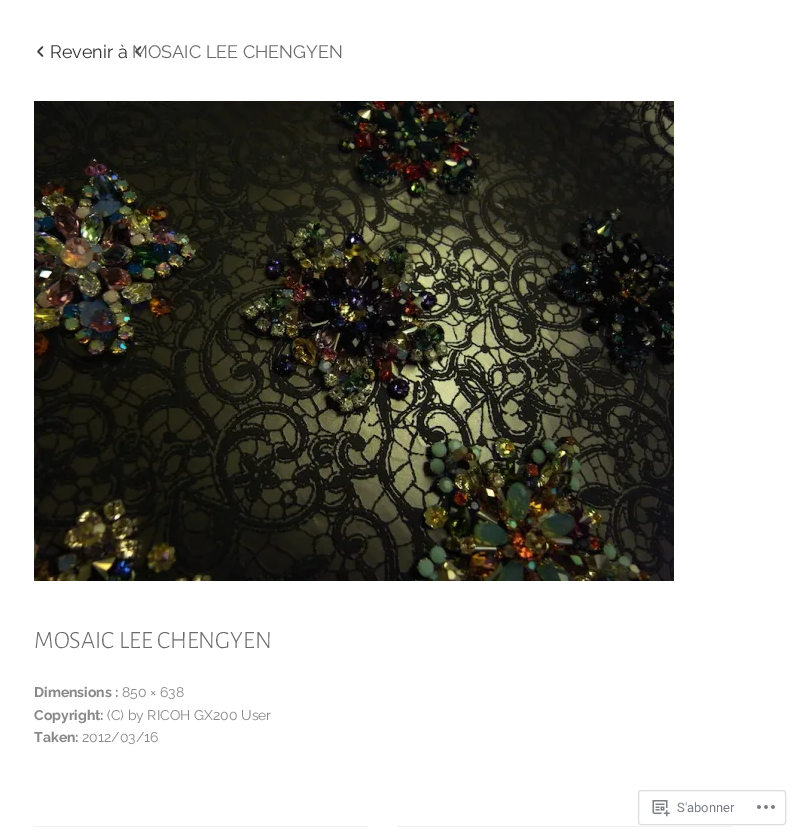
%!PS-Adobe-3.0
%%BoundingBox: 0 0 796 835
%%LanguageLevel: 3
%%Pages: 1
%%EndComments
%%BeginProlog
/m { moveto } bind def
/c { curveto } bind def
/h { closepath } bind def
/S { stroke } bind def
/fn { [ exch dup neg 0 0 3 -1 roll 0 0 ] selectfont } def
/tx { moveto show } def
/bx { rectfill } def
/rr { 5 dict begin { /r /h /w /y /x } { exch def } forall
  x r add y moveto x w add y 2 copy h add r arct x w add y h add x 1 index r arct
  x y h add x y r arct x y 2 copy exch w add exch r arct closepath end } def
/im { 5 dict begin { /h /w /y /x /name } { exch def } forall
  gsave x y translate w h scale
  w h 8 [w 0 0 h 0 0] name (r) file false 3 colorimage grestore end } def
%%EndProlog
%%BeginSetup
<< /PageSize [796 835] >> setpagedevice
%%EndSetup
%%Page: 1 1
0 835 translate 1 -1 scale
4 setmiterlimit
1 setgray
0 0 796 835 bx
/Raleway-Regular 18 fn
0.2 setgray
(Revenir à) 50 58 tx
0.267 setgray
37.5 51 m 36.5 52 39.5 54 40 54.5 c 40.5 55 42 57.5 43 56.5 c 44 55.5 39.5 52 39 51.5 c 39.5 51 44 47.5 43 46.5 c 42 45.5 38 50.5 37.5 51 c h eofill
135.5 51 m 134.5 52 137.5 54 138 54.5 c 138.5 55 140 57.5 141 56.5 c 142 55.5 137.5 52 137 51.5 c 137.5 51 142 47.5 141 46.5 c 140 45.5 136 50.5 135.5 51 c h eofill
0.42 setgray
(MOSAIC LEE CHENGYEN) 132 58 tx
(image0.raw) 34 101 640 480 im
/AlegreyaSans-Light 25 fn
(MOSAIC LEE CHENGYEN) 34 648 tx
/Raleway-Bold 14 fn
0.533 setgray
(Dimensions :) 34 697 tx
/Raleway-Regular 14 fn
(850 × 638) 122 697 tx
/Raleway-Bold 14 fn
(Copyright:) 34 720 tx
/Raleway-Regular 14 fn
(\(C\) by RICOH GX200 User) 107 720 tx
/Raleway-Bold 14 fn
(Taken:) 34 742 tx
/Raleway-Regular 14 fn
(2012/03/16) 82 742 tx
0.945 setgray
34 826 334 1 bx
398 826 334 1 bx
0.867 0.867 0.875 setrgbcolor
638.5 790.5 147 34 2.5 rr S
(image1.raw) 652 800 18 17 im
/Roboto-Regular 13 fn
0.482 0.498 0.522 setrgbcolor
(S'abonner) 677 812 tx
(image2.raw) 757 805 18 4 im
showpage
%%EOF
